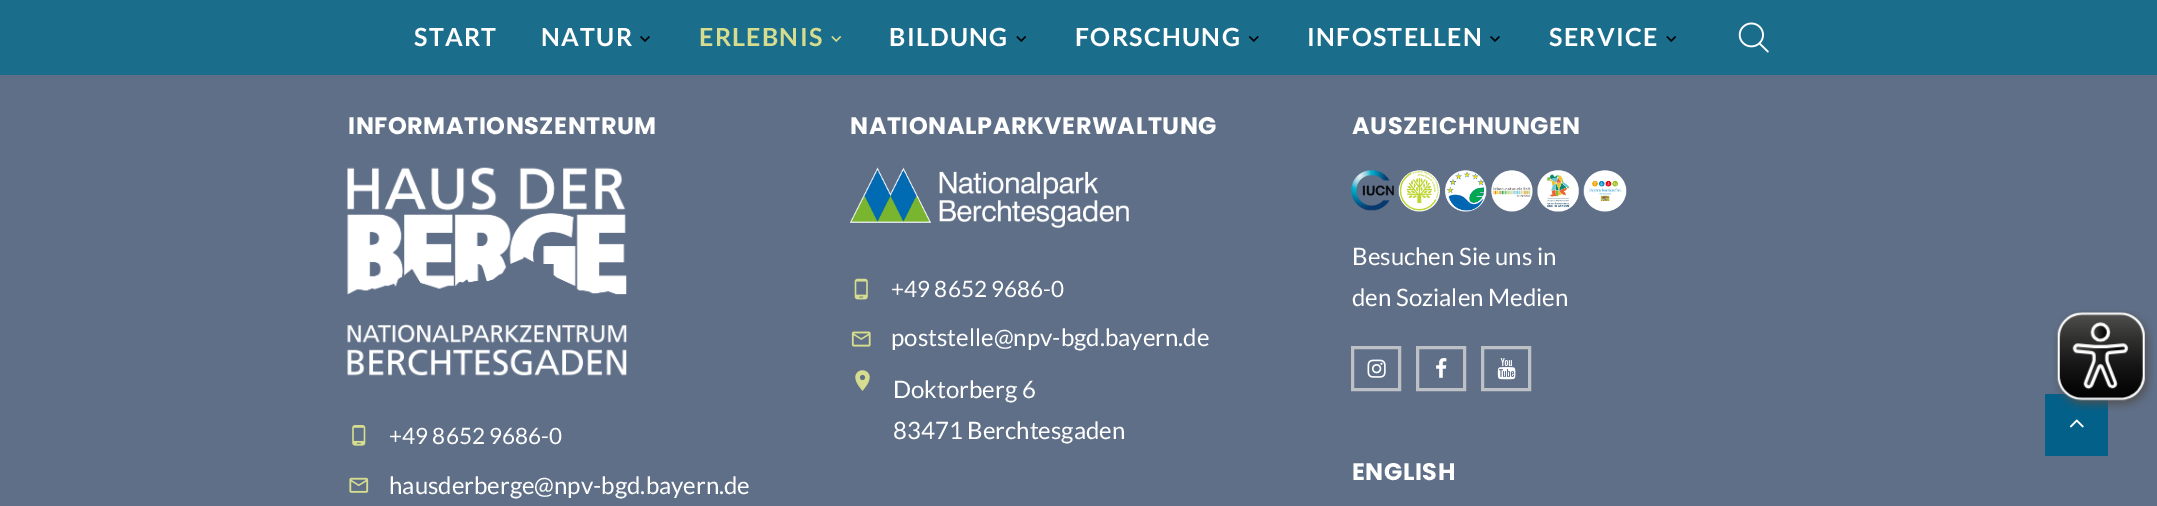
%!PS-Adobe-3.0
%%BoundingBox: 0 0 2157 506
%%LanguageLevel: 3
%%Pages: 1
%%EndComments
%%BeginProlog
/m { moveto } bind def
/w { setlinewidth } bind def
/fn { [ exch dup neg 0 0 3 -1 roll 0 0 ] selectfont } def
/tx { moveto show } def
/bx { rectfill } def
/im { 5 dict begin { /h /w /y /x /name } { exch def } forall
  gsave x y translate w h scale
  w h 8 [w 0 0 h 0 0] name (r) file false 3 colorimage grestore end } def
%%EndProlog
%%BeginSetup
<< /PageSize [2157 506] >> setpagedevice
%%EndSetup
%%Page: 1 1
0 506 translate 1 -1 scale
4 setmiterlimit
0.373 0.435 0.533 setrgbcolor
0 0 2157 506 bx
0.102 0.427 0.545 setrgbcolor
0 0 2157 75 bx
/Lato-Bold 25 fn
1 setgray
414 46 m 1.25 0 (START) ashow
541 46 m 1.25 0 (NATUR) ashow
(image0.raw) 640 36 10 6 im
0.839 0.867 0.561 setrgbcolor
699 46 m 1.25 0 (ERLEBNIS) ashow
(image1.raw) 831 36 11 6 im
1 setgray
889 46 m 1.25 0 (BILDUNG) ashow
(image2.raw) 1016 36 11 6 im
1075 46 m 1.25 0 (FORSCHUNG) ashow
(image3.raw) 1248 36 11 6 im
1307 46 m 1.25 0 (INFOSTELLEN) ashow
(image0.raw) 1490 36 10 6 im
1549 46 m 1.25 0 (SERVICE) ashow
(image2.raw) 1666 36 11 6 im
(image4.raw) 1738 22 31 31 im
/Poppins-Bold 24 fn
348 134 m 0.5 0 (INFORMATIONSZENTRUM) ashow
(image5.raw) 347 167 280 209 im
(image6.raw) 352 425 14 21 im
/Lato-Regular 22.5 fn
(+49 8652 9686-0) 389 444 tx
(image7.raw) 349 477 20 16 im
/Lato-Regular 24 fn
(hausderberge@npv-bgd.bayern.de) 389 494 tx
/Poppins-Bold 24 fn
850 134 m 0.5 0 (NATIONALPARKVERWALTUNG) ashow
(image8.raw) 850 167 279 61 im
(image9.raw) 854 278 14 22 im
/Lato-Regular 22.5 fn
(+49 8652 9686-0) 891 297 tx
(image10.raw) 851 331 20 16 im
/Lato-Regular 24 fn
(poststelle@npv-bgd.bayern.de) 891 346 tx
(image11.raw) 855 370 15 21 im
(Doktorberg 6) 893 398 tx
(83471 Berchtesgaden) 893 439 tx
/Poppins-Bold 24 fn
1352 134 m 0.5 0 (AUSZEICHNUNGEN) ashow
(image12.raw) 1351 170 43 41 im
(image13.raw) 1398 170 42 42 im
(image14.raw) 1445 170 42 42 im
(image15.raw) 1491 170 42 42 im
(image16.raw) 1537 170 42 42 im
(image17.raw) 1583 170 44 42 im
/Lato-Regular 24 fn
(Besuchen Sie uns in) 1352 265 tx
(den Sozialen Medien) 1352 306 tx
0.741 0.753 0.769 setrgbcolor
3 w
1352.5 347.5 47 42 rectstroke
(image18.raw) 1367 359 19 19 im
1417.5 347.5 47 42 rectstroke
(image19.raw) 1436 358 11 20 im
1482.5 347.5 47 42 rectstroke
(image20.raw) 1497 358 19 22 im
/Poppins-Bold 24 fn
1 setgray
1352 480 m 0.5 0 (ENGLISH) ashow
0.012 0.376 0.537 setrgbcolor
2045 394 63 62 bx
(image21.raw) 2053 310 101 101 im
(image22.raw) 2069 419 15 9 im
showpage
%%EOF
